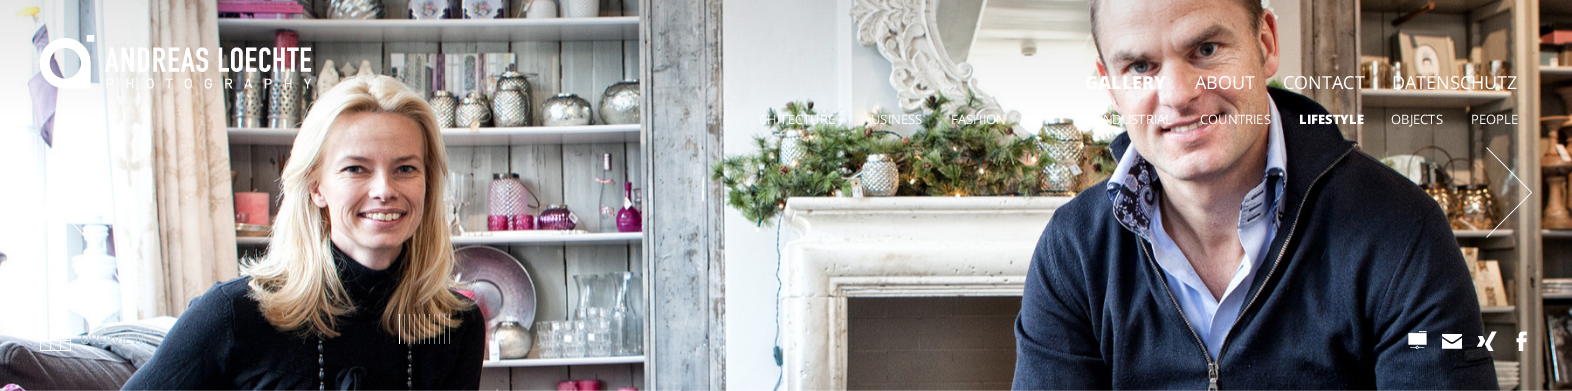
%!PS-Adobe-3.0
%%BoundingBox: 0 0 1572 391
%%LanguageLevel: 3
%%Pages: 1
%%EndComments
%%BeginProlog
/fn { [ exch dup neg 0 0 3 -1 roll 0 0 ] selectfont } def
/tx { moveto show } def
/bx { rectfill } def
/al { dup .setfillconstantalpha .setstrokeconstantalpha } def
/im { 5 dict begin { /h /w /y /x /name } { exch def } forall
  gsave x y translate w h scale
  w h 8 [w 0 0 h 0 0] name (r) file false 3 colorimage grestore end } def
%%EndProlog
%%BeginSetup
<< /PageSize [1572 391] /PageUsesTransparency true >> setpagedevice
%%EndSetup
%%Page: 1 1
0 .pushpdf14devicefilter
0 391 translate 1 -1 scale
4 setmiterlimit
1 setgray
0 0 1572 391 bx
(image0.raw) 0 0 1572 391 im
(image1.raw) 40 35 271 54 im
/OpenSans-ExtraBold 18 fn
(GALLERY) 1085 89 tx
/OpenSans-Regular 18 fn
(ABOUT) 1195 89 tx
(CONTACT) 1283 89 tx
(DATENSCHUTZ) 1392 89 tx
/OpenSans-Regular 13 fn
(CHITECTURE) 759 124 tx
(USINESS) 871 124 tx
(FASHION) 951 124 tx
(INDUSTRIAL) 1099 124 tx
(COUNTRIES) 1200 124 tx
/OpenSans-ExtraBold 13 fn
(LIFESTYLE) 1299 124 tx
/OpenSans-Regular 13 fn
(OBJECTS) 1391 124 tx
(PEOPLE) 1471 124 tx
(image2.raw) 44 187 40 49 im
(image3.raw) 1486 147 46 91 im
(image4.raw) 40 320 31 31 im
0.753 0.812 0.859 setrgbcolor
(OVERVIEW) 80 344 tx
1 setgray
399 314 1 30 bx
0.5 al
404 314 1 30 bx
409 314 1 30 bx
414 314 1 30 bx
419 314 1 30 bx
424 314 1 30 bx
429 314 1 30 bx
434 314 1 30 bx
439 314 1 30 bx
444 314 1 30 bx
449 314 1 30 bx
1 al
(image5.raw) 1408 331 19 18 im
(image6.raw) 1442 334 20 15 im
(image7.raw) 1477 331 20 20 im
(image8.raw) 1516 331 11 20 im
.poppdf14devicefilter showpage
%%EOF
